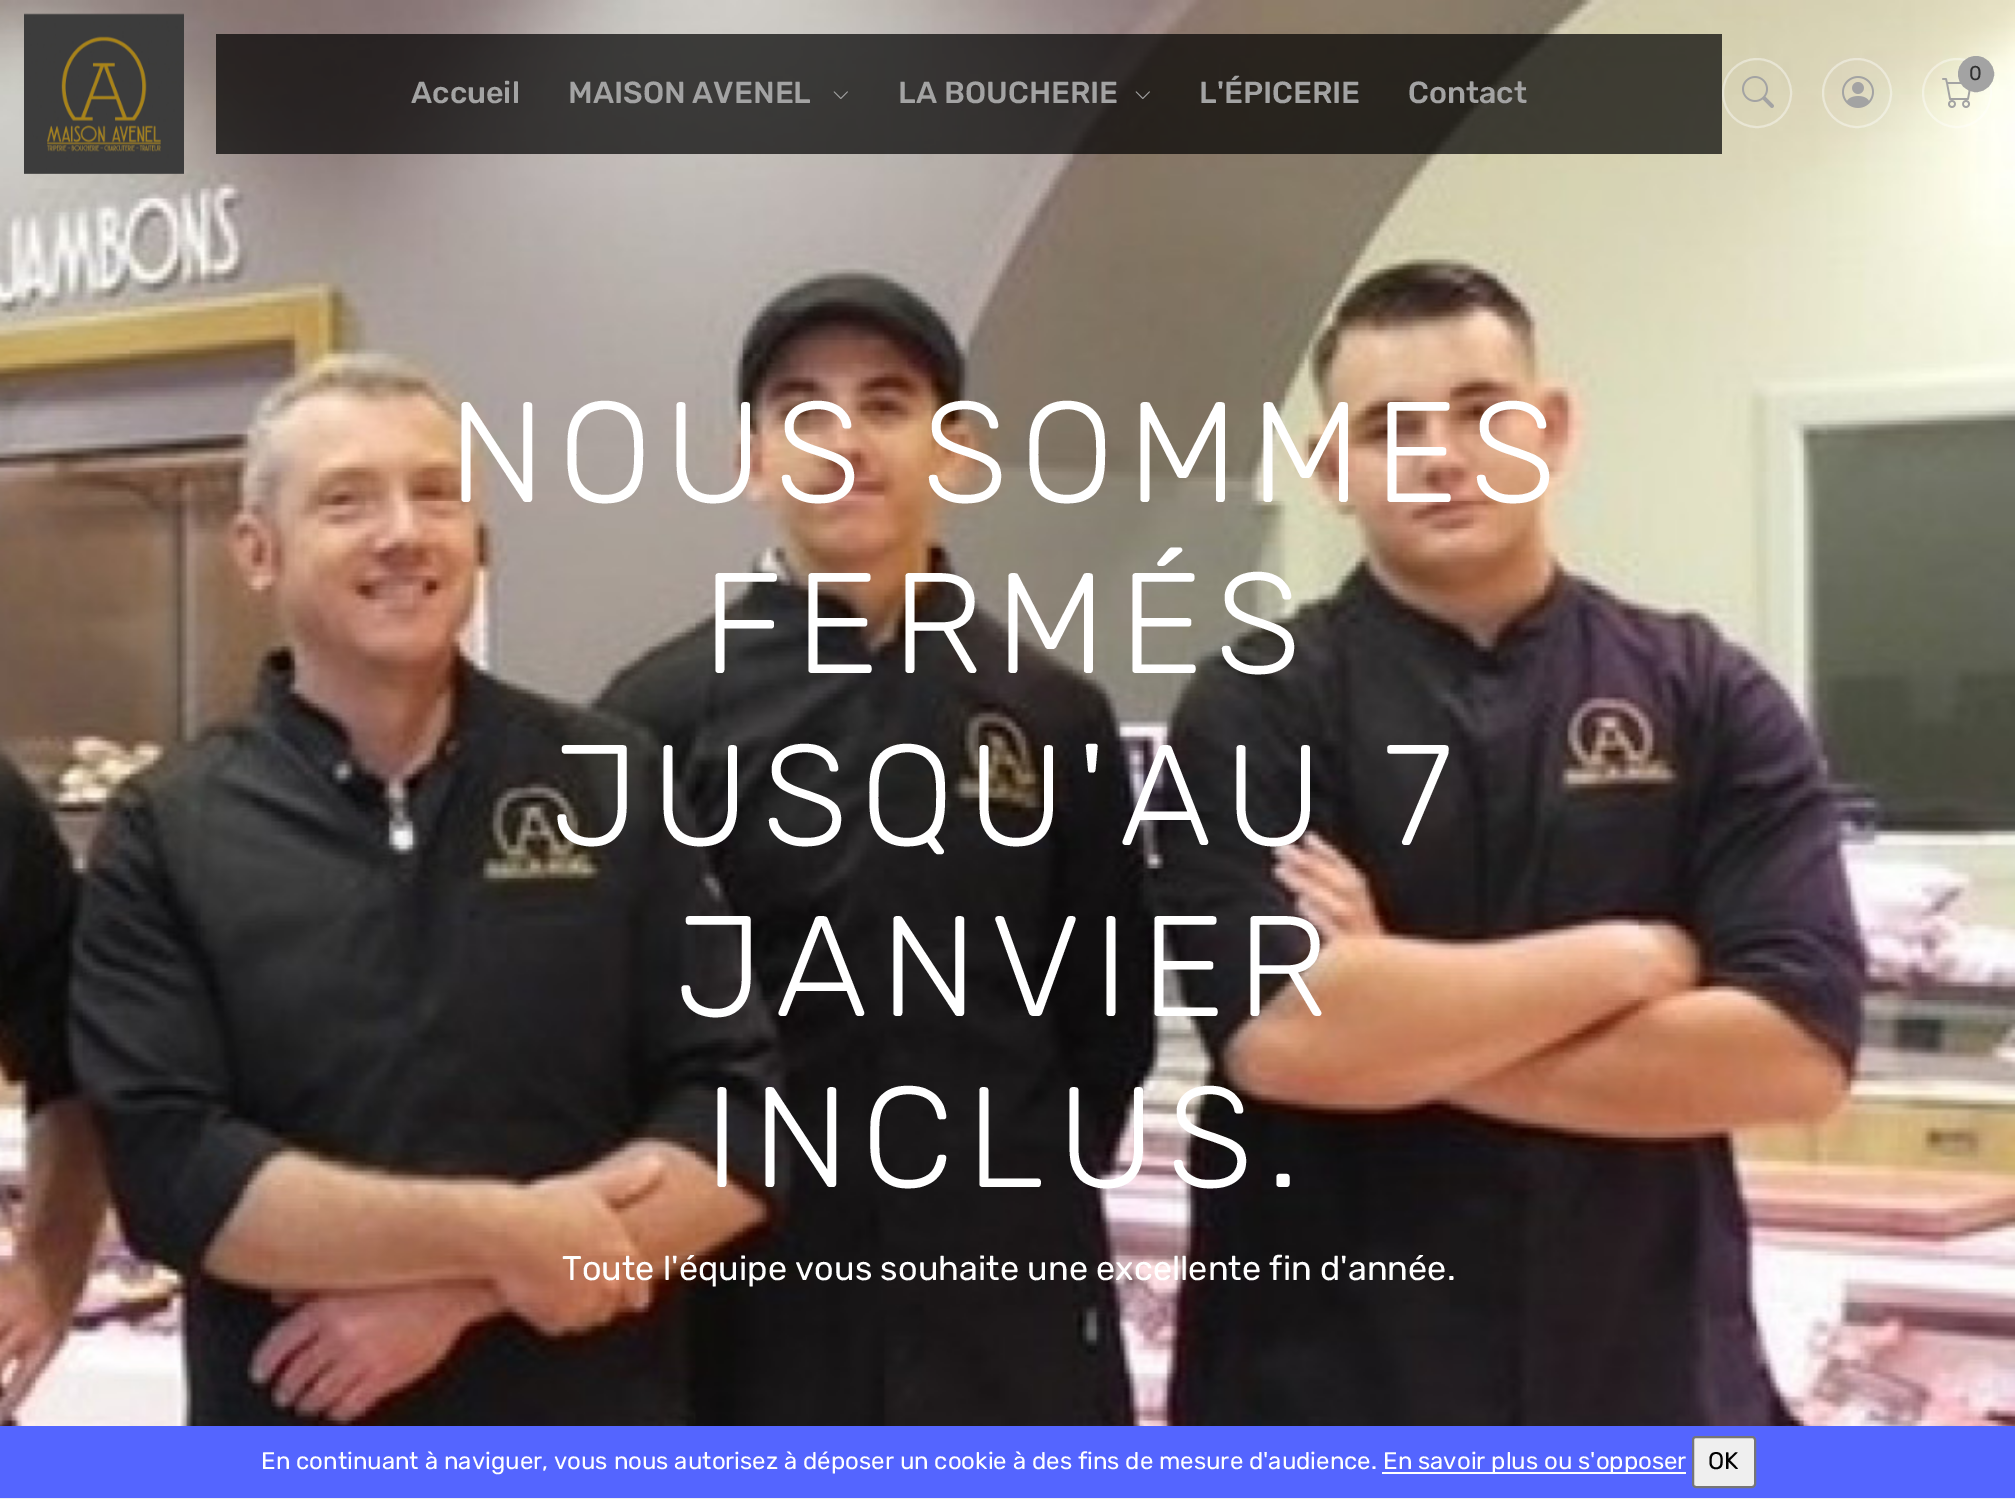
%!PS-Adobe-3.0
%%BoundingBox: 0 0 2015 1499
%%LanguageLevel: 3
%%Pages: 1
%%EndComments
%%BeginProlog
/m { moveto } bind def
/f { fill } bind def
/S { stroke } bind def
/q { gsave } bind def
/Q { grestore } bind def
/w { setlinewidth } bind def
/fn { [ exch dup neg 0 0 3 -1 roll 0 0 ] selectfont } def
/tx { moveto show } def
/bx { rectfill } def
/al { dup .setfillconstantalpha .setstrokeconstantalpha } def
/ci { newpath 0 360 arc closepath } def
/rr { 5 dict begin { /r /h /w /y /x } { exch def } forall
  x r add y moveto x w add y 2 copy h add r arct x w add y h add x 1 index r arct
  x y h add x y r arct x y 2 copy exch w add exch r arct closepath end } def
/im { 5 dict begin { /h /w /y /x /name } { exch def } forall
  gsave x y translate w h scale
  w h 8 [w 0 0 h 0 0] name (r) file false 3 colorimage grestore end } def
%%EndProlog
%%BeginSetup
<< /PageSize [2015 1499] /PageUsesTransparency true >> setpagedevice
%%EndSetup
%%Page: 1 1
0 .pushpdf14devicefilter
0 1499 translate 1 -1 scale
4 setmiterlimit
1 setgray
0 0 2015 1499 bx
(image6.raw) 0 0 2015 1426 im
(image0.raw) 24 13 160 161 im
0.4 al
2 w
1757 93 34 ci S
1 al
(image1.raw) 1742 76 32 32 im
0.4 al
1857 93 34 ci S
1 al
(image2.raw) 1842 76 32 32 im
0.4 al
1957 93 34 ci S
1 al
(image3.raw) 1942 78 29 30 im
0.639 setgray
1976 74 17 ci q f Q
S
/Rubik-Regular 20 fn
0.184 setgray
(0) 1969 80 tx
0.71 al
0 setgray
216 34 1506 120 bx
/Rubik-Medium 30.5 fn
1 al
0.639 setgray
(Accueil) 411 103 tx
(MAISON AVENEL) 568 103 tx
(image4.raw) 833 91 15 8 im
(LA BOUCHERIE) 898 103 tx
(image5.raw) 1135 91 15 8 im
(L'ÉPICERIE) 1199 103 tx
(Contact) 1408 103 tx
/Rubik-Light 142.75 fn
1 setgray
448 502 m 12 0 (NOUS SOMMES) ashow
702 673 m 12 0 (FERMÉS) ashow
551 845 m 12 0 (JUSQU'AU 7) ashow
675 1016 m 12 0 (JANVIER) ashow
704 1187 m 12 0 (INCLUS.) ashow
/Rubik-Regular 34.25 fn
(Toute l'équipe vous souhaite une excellente fin d'année.) 562 1280 tx
0.329 0.396 1 setrgbcolor
0 1426 2015 72 bx
0.933 setgray
0 1498 2015 1 bx
/Rubik-Regular 24 fn
1 setgray
(En continuant à naviguer, vous nous autorisez à déposer un cookie à des fins de mesure d'audience.) 261 1469 tx
1382 1472 304 2 bx
(En savoir plus ou s'opposer) 1383 1469 tx
0.937 setgray
1693 1437 62 50 3 rr q f Q
0.463 setgray
S
0 setgray
(OK) 1708 1469 tx
.poppdf14devicefilter showpage
%%EOF
